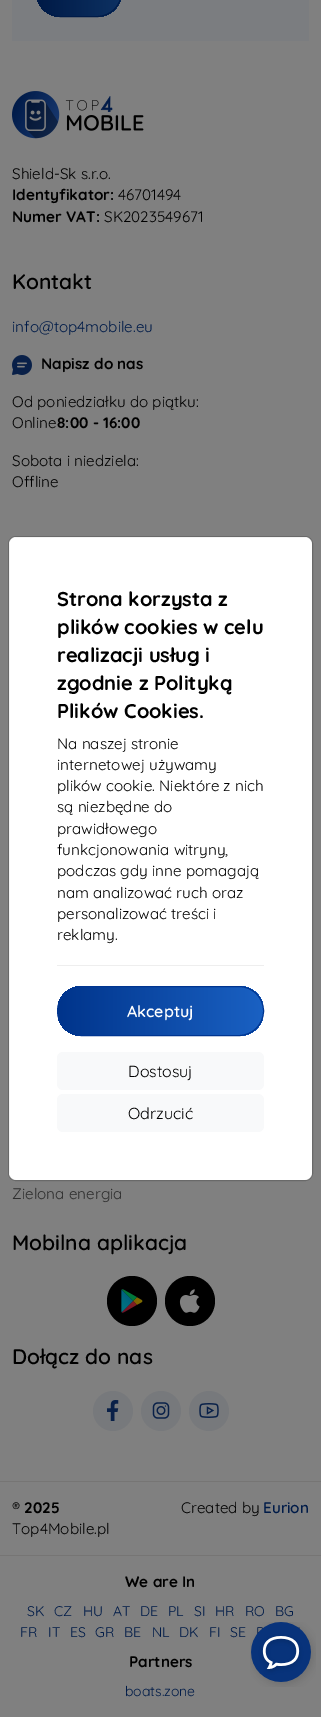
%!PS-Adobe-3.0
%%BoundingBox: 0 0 321 1717
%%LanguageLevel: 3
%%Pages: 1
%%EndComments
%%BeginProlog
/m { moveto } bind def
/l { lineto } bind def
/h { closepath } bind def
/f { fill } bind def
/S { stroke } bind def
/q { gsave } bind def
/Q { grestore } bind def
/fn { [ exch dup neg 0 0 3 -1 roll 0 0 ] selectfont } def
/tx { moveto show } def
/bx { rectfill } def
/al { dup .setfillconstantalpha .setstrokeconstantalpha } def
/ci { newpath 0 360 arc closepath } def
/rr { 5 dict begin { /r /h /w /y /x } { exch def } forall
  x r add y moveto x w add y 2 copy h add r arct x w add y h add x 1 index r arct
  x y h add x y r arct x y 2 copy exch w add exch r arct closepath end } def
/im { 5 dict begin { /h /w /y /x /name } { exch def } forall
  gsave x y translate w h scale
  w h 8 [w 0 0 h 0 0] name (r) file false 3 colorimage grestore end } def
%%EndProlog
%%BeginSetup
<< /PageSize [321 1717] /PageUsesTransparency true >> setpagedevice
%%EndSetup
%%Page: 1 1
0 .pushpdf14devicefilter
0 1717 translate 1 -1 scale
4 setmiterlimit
0.502 setgray
0 0 321 1717 bx
0.482 0.49 0.502 setrgbcolor
12 0 297 41 bx
q
36 -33 86 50 25 rr clip newpath
q 37 0 m 121 0 l 121 17 l 37 17 l h clip newpath
<< /ShadingType 2 /ColorSpace /DeviceRGB /Coords [37 -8 121 -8] /Extend [true true] /Function << /FunctionType 2 /Domain [0 1] /C0 [0 0.102 0.275] /C1 [0.051 0.192 0.384] /N 1 >> >> shfill Q
Q
0 0.106 0.282 setrgbcolor
36.5 -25.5 85 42 24.5 rr S
(image0.raw) 12 91 132 48 im
/Quicksand-Regular 15.25 fn
0 setgray
(Shield-Sk s.r.o.) 12 179 tx
/Quicksand-Bold 15.25 fn
(Identyfikator:) 12 200 tx
/Quicksand-Regular 15.25 fn
(46701494) 118 200 tx
/Quicksand-Bold 15.25 fn
(Numer VAT:) 12 222 tx
/Quicksand-Regular 15.25 fn
(SK2023549671) 104 222 tx
/Quicksand-SemiBold 21 fn
(Kontakt) 12 289 tx
/Quicksand-Regular 15.25 fn
0 0.106 0.282 setrgbcolor
(info@top4mobile.eu) 12 332 tx
(image1.raw) 12 355 20 20 im
/Quicksand-Bold 15.25 fn
0 setgray
(Napisz do nas) 41 369 tx
/Quicksand-Regular 15.25 fn
(Od poniedziałku do piątku:) 12 407 tx
(Online) 12 428 tx
/Quicksand-Bold 15.25 fn
(8:00 - 16:00) 57 428 tx
/Quicksand-Regular 15.25 fn
(Sobota i niedziela:) 12 466 tx
(Offline) 12 487 tx
0.18 setgray
(Zielona energia) 12 1199 tx
/Quicksand-SemiBold 21 fn
0 setgray
(Mobilna aplikacja) 12 1250 tx
132 1301 25 ci f
(image2.raw) 121 1289 22 24 im
190 1301 25 ci f
(image3.raw) 179 1289 21 24 im
(Dołącz do nas) 12 1364 tx
0.467 0.475 0.486 setrgbcolor
113 1411 20 ci f
(image4.raw) 107 1400 12 21 im
161 1411 20 ci f
(image5.raw) 152 1402 18 17 im
209 1411 20 ci f
(image6.raw) 199 1403 20 15 im
1 setgray
9 537 303 643 7 rr f
0.18 al
0 setgray
8.5 536.5 304 644 7.5 rr S
/Quicksand-Bold 20 fn
1 al
(Strona korzysta z) 57 606 tx
(plików cookies w celu) 57 634 tx
(realizacji usług i) 57 662 tx
(zgodnie z Polityką) 57 690 tx
(Plików Cookies.) 57 718 tx
/Quicksand-Regular 15.25 fn
(Na naszej stronie) 57 749 tx
(internetowej używamy) 57 770 tx
(plików cookie. Niektóre z nich) 57 791 tx
(są niezbędne do) 57 812 tx
(prawidłowego) 57 834 tx
(funkcjonowania witryny,) 57 855 tx
(podczas gdy inne pomagają) 57 876 tx
(nam analizować ruch oraz) 57 898 tx
(personalizować treści i) 57 919 tx
(reklamy.) 57 940 tx
0.933 setgray
57 965 207 1 bx
q
57 986 207 50 25 rr clip newpath
q 58 986 m 263 986 l 263 1036 l 58 1036 l h clip newpath
<< /ShadingType 2 /ColorSpace /DeviceRGB /Coords [58 1011 263 1011] /Extend [true true] /Function << /FunctionType 2 /Domain [0 1] /C0 [0 0.204 0.545] /C1 [0.102 0.38 0.765] /N 1 >> >> shfill Q
Q
0 0.208 0.565 setrgbcolor
57.5 986.5 206 49 24.5 rr S
/Quicksand-SemiBold 16 fn
1 setgray
(Akceptuj) 127 1017 tx
0.973 0.976 0.98 setrgbcolor
57 1052 207 38 6 rr f
/Quicksand-Regular 16 fn
0 setgray
(Dostosuj) 128 1077 tx
0.973 0.976 0.98 setrgbcolor
57 1094 207 38 6 rr f
0 setgray
(Odrzucić) 128 1119 tx
0.463 0.459 0.455 setrgbcolor
0 1481 321 1 bx
0 1555 321 1 bx
/Quicksand-Regular 15.25 fn
0 setgray
(®) 12 1513 tx
/Quicksand-Bold 15.25 fn
(2025) 24 1513 tx
/Quicksand-Regular 15.25 fn
(Top4Mobile.pl) 12 1534 tx
(Created by) 181 1513 tx
/Quicksand-SemiBold 15.25 fn
0 0.106 0.282 setrgbcolor
(Eurion) 263 1513 tx
/Quicksand-Bold 15.25 fn
0 setgray
(We are In) 125 1587 tx
/Quicksand-Regular 14 fn
0 0.106 0.282 setrgbcolor
(SK) 27 1616 tx
(CZ) 54 1616 tx
(HU) 83 1616 tx
(AT) 113 1616 tx
(DE) 140 1616 tx
(PL) 168 1616 tx
(SI) 194 1616 tx
(HR) 215 1616 tx
(RO) 245 1616 tx
(BG) 275 1616 tx
(FR) 20 1637 tx
(IT) 48 1637 tx
(ES) 70 1637 tx
(GR) 95 1637 tx
(BE) 124 1637 tx
(NL) 152 1637 tx
(DK) 179 1637 tx
(FI) 209 1637 tx
(SE) 230 1637 tx
/Quicksand-Bold 15.25 fn
0 setgray
(Partners) 129 1667 tx
/Quicksand-Regular 14 fn
0 0.106 0.282 setrgbcolor
(boats.zone) 125 1696 tx
(image7.raw) 250 1622 66 65 im
.poppdf14devicefilter showpage
%%EOF
